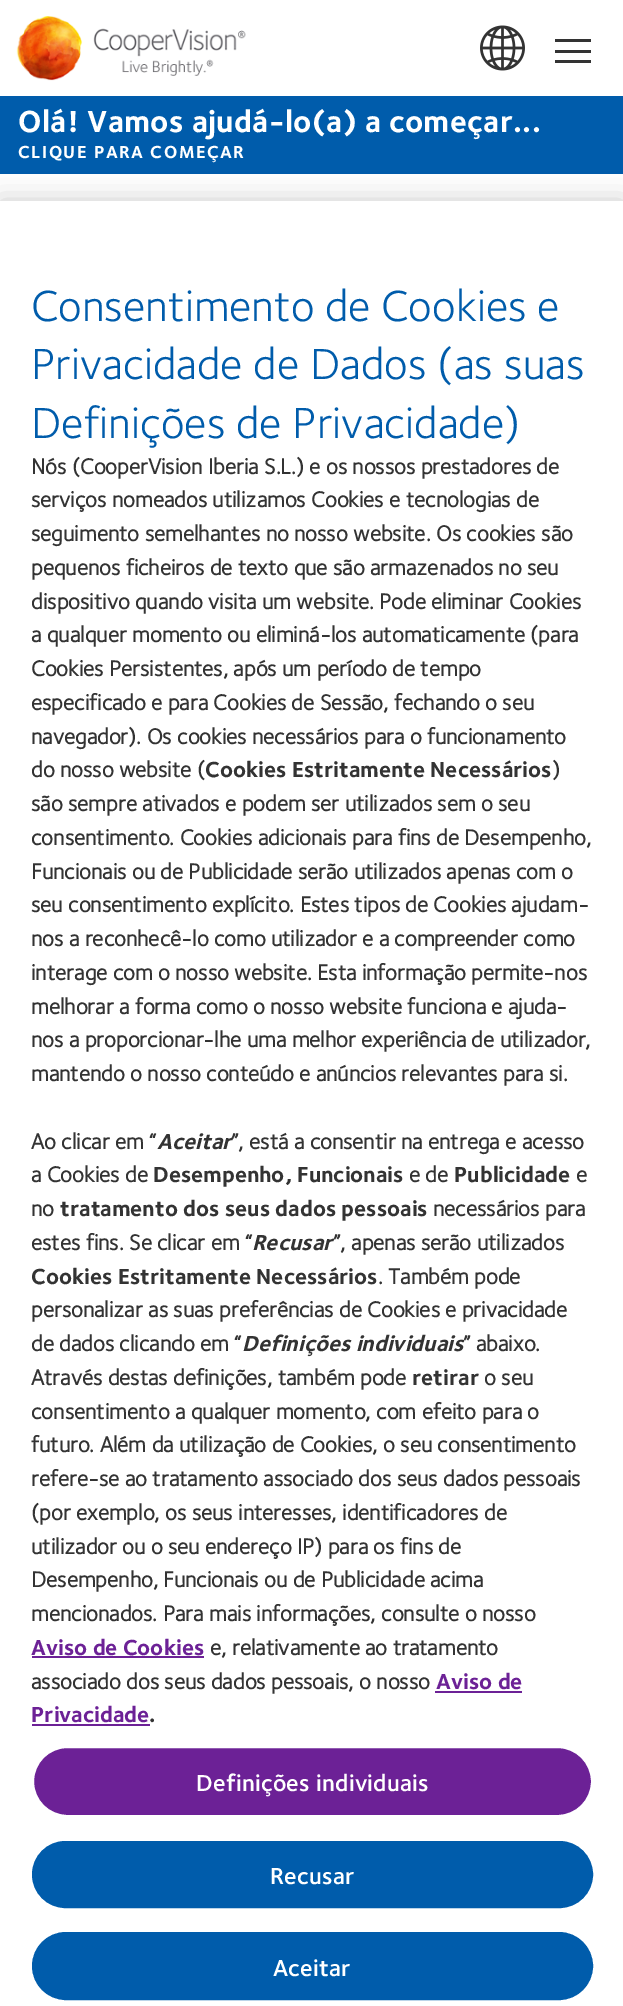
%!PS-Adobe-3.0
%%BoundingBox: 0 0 623 2006
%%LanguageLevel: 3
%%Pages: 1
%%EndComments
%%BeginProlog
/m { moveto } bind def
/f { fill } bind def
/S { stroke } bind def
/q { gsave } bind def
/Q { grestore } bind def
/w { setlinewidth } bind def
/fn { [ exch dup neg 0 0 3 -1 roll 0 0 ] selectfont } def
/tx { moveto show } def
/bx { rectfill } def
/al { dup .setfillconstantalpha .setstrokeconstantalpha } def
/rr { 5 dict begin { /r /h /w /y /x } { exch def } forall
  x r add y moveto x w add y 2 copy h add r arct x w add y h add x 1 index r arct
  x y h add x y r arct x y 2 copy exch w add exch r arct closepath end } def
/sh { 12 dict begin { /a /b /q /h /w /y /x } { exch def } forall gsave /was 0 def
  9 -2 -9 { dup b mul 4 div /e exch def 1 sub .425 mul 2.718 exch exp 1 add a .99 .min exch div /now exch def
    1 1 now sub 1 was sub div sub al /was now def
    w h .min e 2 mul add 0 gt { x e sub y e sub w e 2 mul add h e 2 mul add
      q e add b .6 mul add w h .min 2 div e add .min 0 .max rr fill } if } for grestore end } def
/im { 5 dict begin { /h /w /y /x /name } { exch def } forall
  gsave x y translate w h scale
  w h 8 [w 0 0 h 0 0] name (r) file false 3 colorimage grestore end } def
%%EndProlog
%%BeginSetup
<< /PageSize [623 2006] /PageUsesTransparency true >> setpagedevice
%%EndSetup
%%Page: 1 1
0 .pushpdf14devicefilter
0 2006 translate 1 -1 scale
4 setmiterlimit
1 setgray
0 0 623 2006 bx
(image0.raw) 16 16 230 65 im
(image1.raw) 480 25 45 46 im
0.2 setgray
555 39 36 3 bx
555 50 36 3 bx
555 60 36 3 bx
0 0.361 0.671 setrgbcolor
0 96 623 78 bx
/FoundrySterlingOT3-Bold 31.5 fn
1 setgray
18 132 m 0.35 0 (Olá! Vamos ajudá-lo\(a\) a começar...) ashow
/FoundrySterlingOT3-Bold 18 fn
18 158 m 1.5 0 (CLIQUE PARA COMEÇAR) ashow
0 setgray
0 201 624 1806 0 13.5 0.2 sh
1 setgray
0 201 623 1805 bx
/FoundrySterlingOT3-Regular 45 fn
0 0.361 0.671 setrgbcolor
(Consentimento de Cookies e) 31 321 tx
(Privacidade de Dados \(as suas) 31 379 tx
(Definições de Privacidade\)) 31 438 tx
/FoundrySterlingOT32-Bold 22.5 fn
0.2 setgray
(Nós \(CooperVision Iberia S.L.\) e os nossos prestadores de) 31 474 tx
(serviços nomeados utilizamos Cookies e tecnologias de) 31 507 tx
(seguimento semelhantes no nosso website. Os cookies são) 31 541 tx
(pequenos ficheiros de texto que são armazenados no seu) 31 575 tx
(dispositivo quando visita um website. Pode eliminar Cookies) 31 609 tx
(a qualquer momento ou eliminá-los automaticamente \(para) 31 642 tx
(Cookies Persistentes, após um período de tempo) 31 676 tx
(especificado e para Cookies de Sessão, fechando o seu) 31 710 tx
(navegador\). Os cookies necessários para o funcionamento) 31 744 tx
(do nosso website \() 31 777 tx
/FoundrySterlingOT3-Bold 22.5 fn
(Cookies Estritamente Necessários) 205 777 tx
/FoundrySterlingOT32-Bold 22.5 fn
(\)) 552 777 tx
(são sempre ativados e podem ser utilizados sem o seu) 31 811 tx
(consentimento. Cookies adicionais para fins de Desempenho,) 31 845 tx
(Funcionais ou de Publicidade serão utilizados apenas com o) 31 879 tx
(seu consentimento explícito. Estes tipos de Cookies ajudam-) 31 912 tx
(nos a reconhecê-lo como utilizador e a compreender como) 31 946 tx
(interage com o nosso website. Esta informação permite-nos) 31 980 tx
(melhorar a forma como o nosso website funciona e ajuda-) 31 1014 tx
(nos a proporcionar-lhe uma melhor experiência de utilizador,) 31 1047 tx
(mantendo o nosso conteúdo e anúncios relevantes para si.) 31 1081 tx
(Ao clicar em “) 31 1149 tx
/FoundrySterlingOT3-BoldItalic 22.5 fn
(Aceitar) 157 1149 tx
/FoundrySterlingOT32-Bold 22.5 fn
(”, está a consentir na entrega e acesso) 231 1149 tx
(a Cookies de) 31 1182 tx
/FoundrySterlingOT3-Bold 22.5 fn
(Desempenho, Funcionais) 153 1182 tx
/FoundrySterlingOT32-Bold 22.5 fn
(e de) 409 1182 tx
/FoundrySterlingOT3-Bold 22.5 fn
(Publicidade) 454 1182 tx
/FoundrySterlingOT32-Bold 22.5 fn
(e) 576 1182 tx
(no) 31 1216 tx
/FoundrySterlingOT3-Bold 22.5 fn
(tratamento dos seus dados pessoais) 60 1216 tx
/FoundrySterlingOT32-Bold 22.5 fn
(necessários para) 433 1216 tx
(estes fins. Se clicar em “) 31 1250 tx
/FoundrySterlingOT3-BoldItalic 22.5 fn
(Recusar) 252 1250 tx
/FoundrySterlingOT32-Bold 22.5 fn
(”, apenas serão utilizados) 333 1250 tx
/FoundrySterlingOT3-Bold 22.5 fn
(Cookies Estritamente Necessários) 31 1284 tx
/FoundrySterlingOT32-Bold 22.5 fn
(. Também pode) 378 1284 tx
(personalizar as suas preferências de Cookies e privacidade) 31 1317 tx
(de dados clicando em “) 31 1351 tx
/FoundrySterlingOT3-BoldItalic 22.5 fn
(Definições individuais) 242 1351 tx
/FoundrySterlingOT32-Bold 22.5 fn
(” abaixo.) 463 1351 tx
(Através destas definições, também pode) 31 1385 tx
/FoundrySterlingOT3-Bold 22.5 fn
(retirar) 412 1385 tx
/FoundrySterlingOT32-Bold 22.5 fn
(o seu) 484 1385 tx
(consentimento a qualquer momento, com efeito para o) 31 1419 tx
(futuro. Além da utilização de Cookies, o seu consentimento) 31 1452 tx
(refere-se ao tratamento associado dos seus dados pessoais) 31 1486 tx
(\(por exemplo, os seus interesses, identificadores de) 31 1520 tx
(utilizador ou o seu endereço IP\) para os fins de) 31 1554 tx
(Desempenho, Funcionais ou de Publicidade acima) 31 1587 tx
(mencionados. Para mais informações, consulte o nosso) 31 1621 tx
/FoundrySterlingOT3-Bold 22.5 fn
0.424 0.129 0.588 setrgbcolor
(Aviso de Cookies) 31 1655 tx
32 1656 172 2 bx
/FoundrySterlingOT32-Bold 22.5 fn
0.2 setgray
(e, relativamente ao tratamento) 210 1655 tx
(associado dos seus dados pessoais, o nosso) 31 1689 tx
/FoundrySterlingOT3-Bold 22.5 fn
0.424 0.129 0.588 setrgbcolor
(Aviso de) 436 1689 tx
435 1691 87 2 bx
(Privacidade) 31 1722 tx
0.2 setgray
(.) 149 1722 tx
0.424 0.129 0.588 setrgbcolor
32 1724 118 2 bx
33 1747 559 69 34.5 rr q f Q
1 setgray
2 w
S
/FoundrySterlingOT3-SemiBold 24 fn
196 1791 m 0.25 0 (Definições individuais) ashow
0 0.361 0.671 setrgbcolor
33 1842 559 65 32.5 rr q f Q
S
1 setgray
270 1884 m 0.25 0 (Recusar) ashow
0 0.361 0.671 setrgbcolor
33 1933 559 66 33 rr q f Q
S
1 setgray
273 1976 m 0.25 0 (Aceitar) ashow
.poppdf14devicefilter showpage
%%EOF
